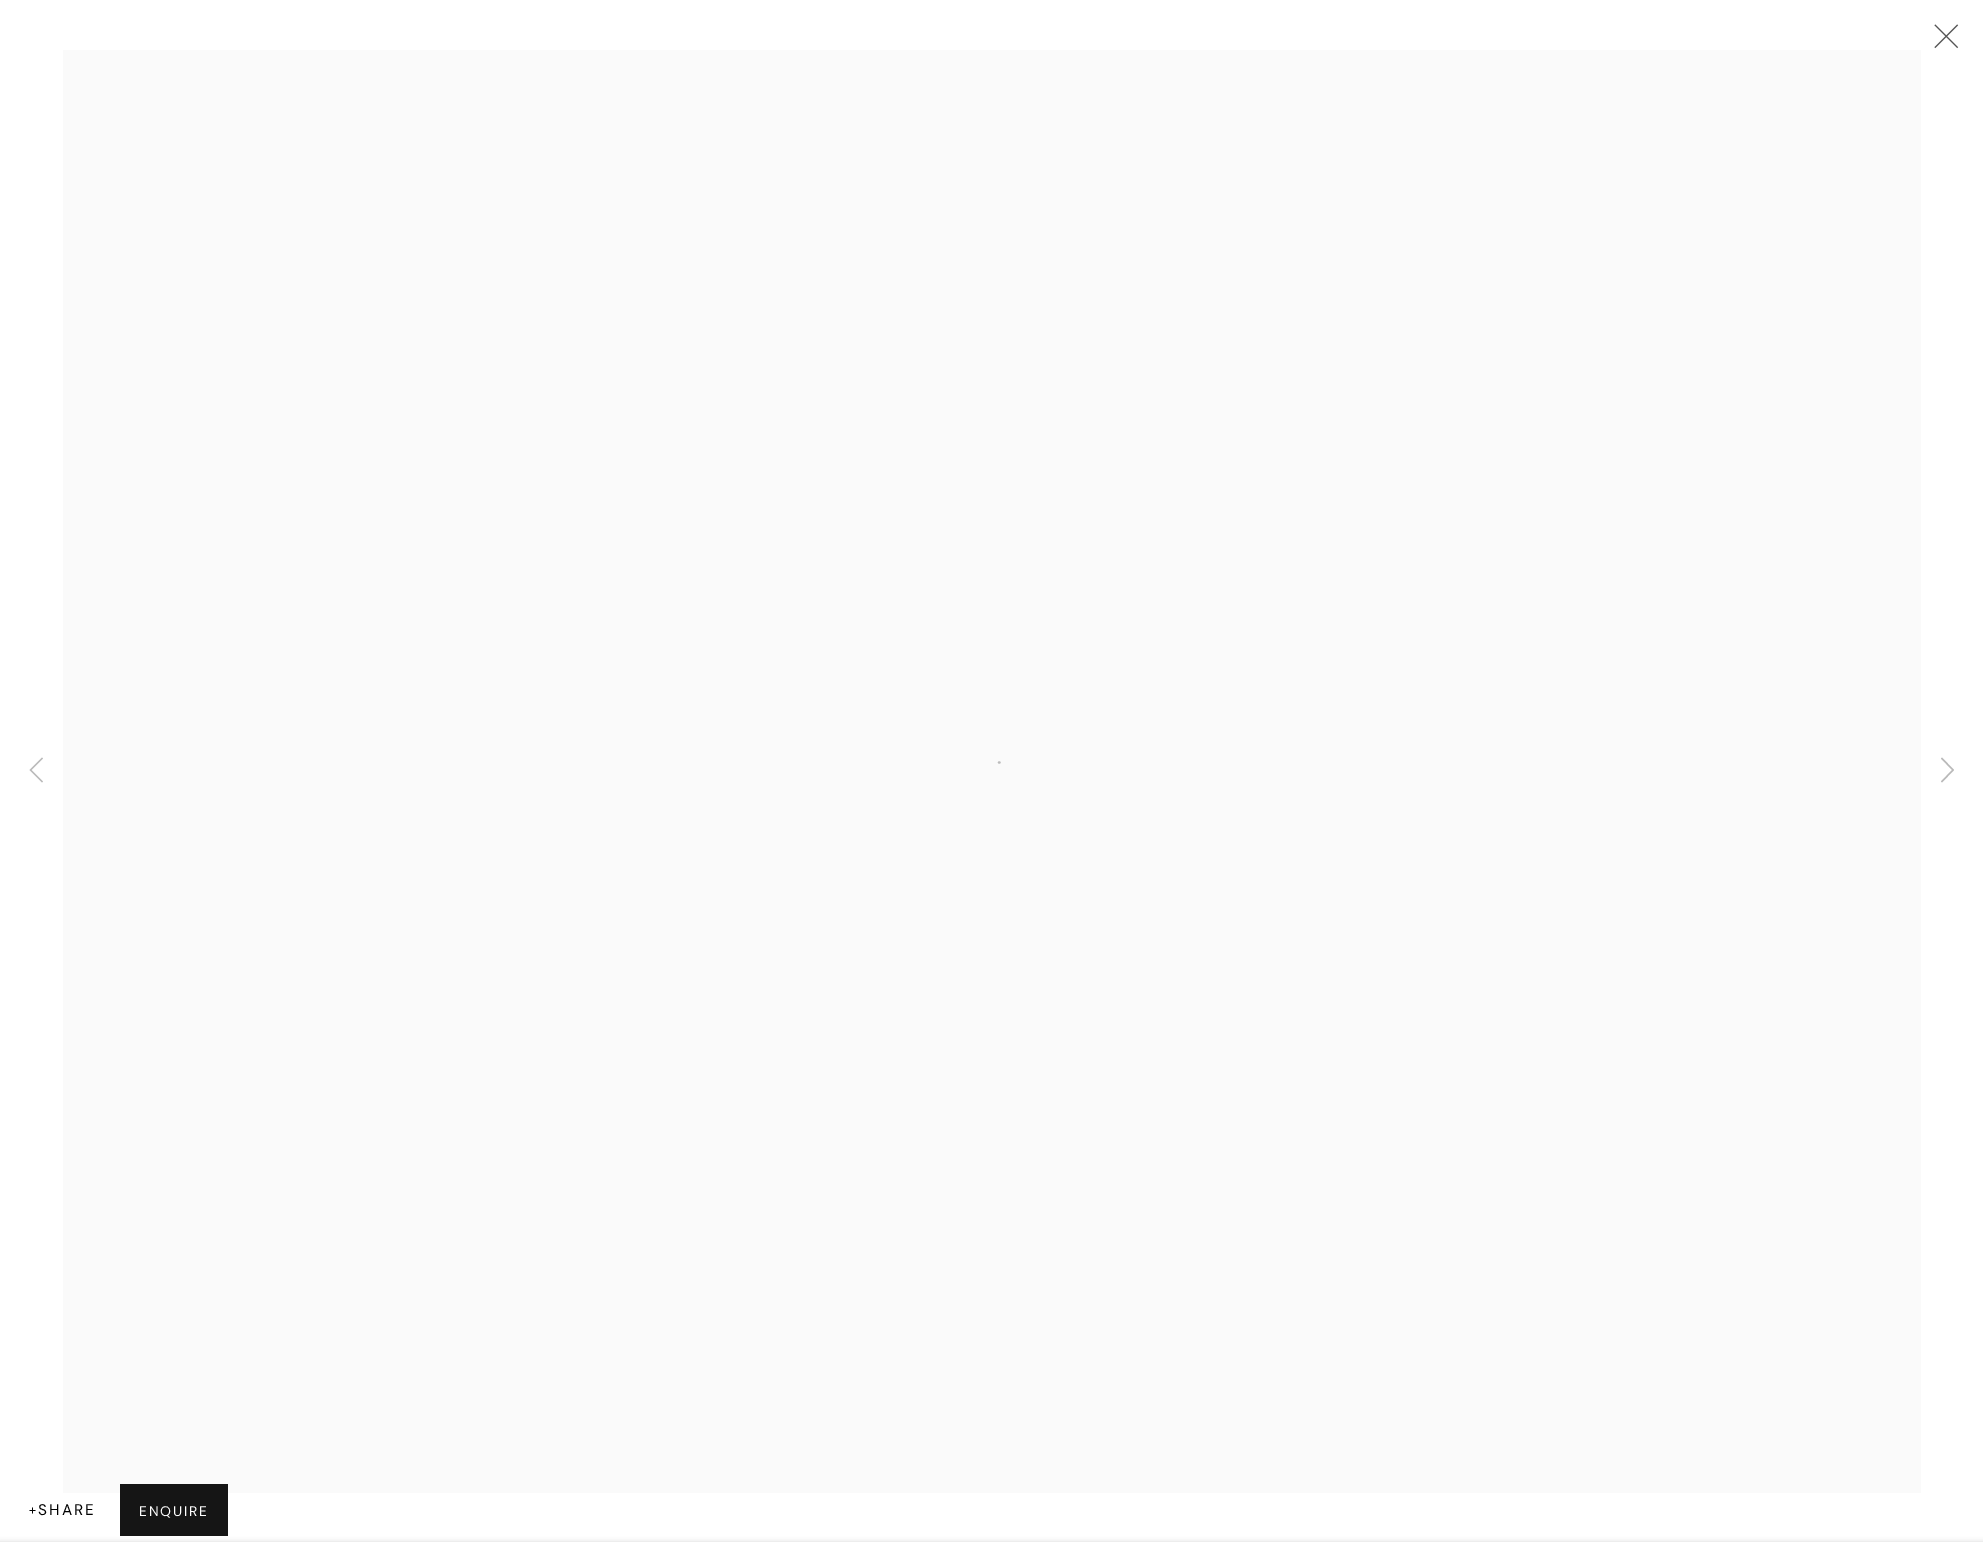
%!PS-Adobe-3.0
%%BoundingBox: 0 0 1983 1542
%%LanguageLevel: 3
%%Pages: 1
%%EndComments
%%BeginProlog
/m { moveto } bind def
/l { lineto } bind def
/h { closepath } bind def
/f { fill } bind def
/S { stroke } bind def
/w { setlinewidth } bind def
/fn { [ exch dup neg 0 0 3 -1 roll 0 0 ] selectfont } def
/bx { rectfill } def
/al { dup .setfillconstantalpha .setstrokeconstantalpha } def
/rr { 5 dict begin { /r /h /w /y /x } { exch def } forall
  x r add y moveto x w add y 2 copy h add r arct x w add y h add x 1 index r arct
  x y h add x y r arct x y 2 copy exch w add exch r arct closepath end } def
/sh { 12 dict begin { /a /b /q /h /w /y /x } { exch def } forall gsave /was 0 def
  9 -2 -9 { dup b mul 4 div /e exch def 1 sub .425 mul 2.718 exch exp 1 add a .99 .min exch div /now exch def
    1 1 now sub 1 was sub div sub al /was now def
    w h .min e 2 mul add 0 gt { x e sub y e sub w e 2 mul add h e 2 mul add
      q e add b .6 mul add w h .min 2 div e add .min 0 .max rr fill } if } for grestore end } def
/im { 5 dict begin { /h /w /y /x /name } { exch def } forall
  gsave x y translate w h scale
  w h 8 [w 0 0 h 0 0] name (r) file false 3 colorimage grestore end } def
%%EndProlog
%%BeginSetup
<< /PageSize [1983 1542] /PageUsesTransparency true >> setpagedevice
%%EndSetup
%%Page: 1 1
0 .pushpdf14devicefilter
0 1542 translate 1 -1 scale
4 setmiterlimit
1 setgray
0 0 1983 1542 bx
(image0.raw) 1934 24 25 25 im
0.725 setgray
30.5 771 m 42 782.5 l 43 781.5 l 31.5 770 l 43 758.5 l 42 757.5 l 29.5 770 l h f
1954 770 m 1942 757.5 l 1941 758.5 l 1952 770 l 1941 781.5 l 1942 782.5 l h f
0.98 setgray
63 50 1858 1443 bx
0.733 setgray
2.2 w
1 setlinecap
999 762.5 m 999.5 762.5 l S
/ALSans-Regular 15.5 fn
0.004 setgray
28 1515 m 2.25 0 (+SHARE) ashow
0.082 setgray
120 1484 108 52 bx
/ALSans-Regular 14 fn
1 setgray
139 1516 m 2 0 (ENQUIRE) ashow
0 setgray
0 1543 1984 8 0 3 0.23 sh
.poppdf14devicefilter showpage
%%EOF
